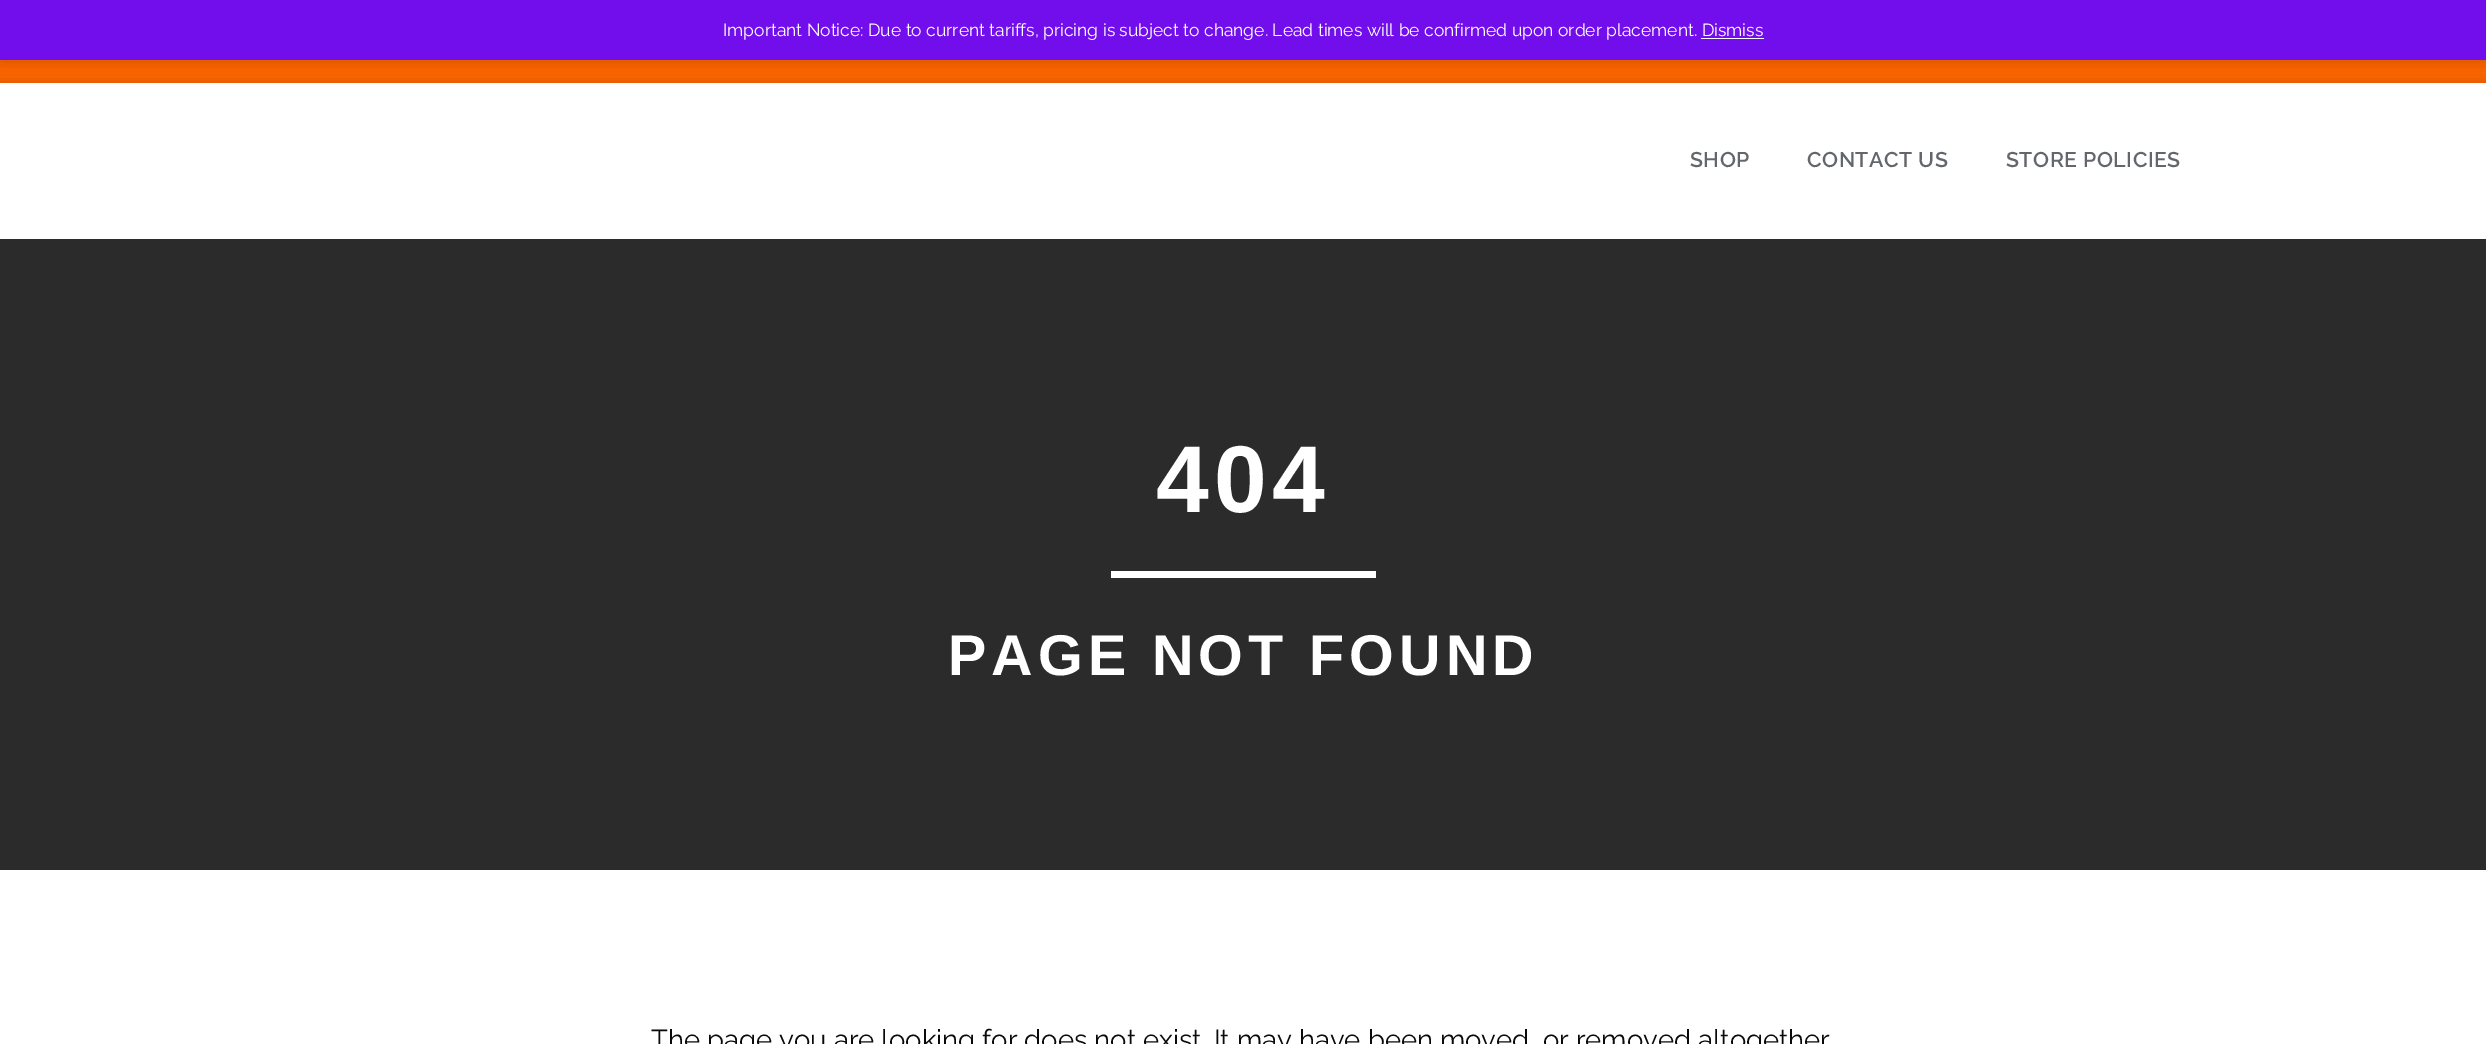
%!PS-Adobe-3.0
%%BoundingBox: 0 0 2486 1044
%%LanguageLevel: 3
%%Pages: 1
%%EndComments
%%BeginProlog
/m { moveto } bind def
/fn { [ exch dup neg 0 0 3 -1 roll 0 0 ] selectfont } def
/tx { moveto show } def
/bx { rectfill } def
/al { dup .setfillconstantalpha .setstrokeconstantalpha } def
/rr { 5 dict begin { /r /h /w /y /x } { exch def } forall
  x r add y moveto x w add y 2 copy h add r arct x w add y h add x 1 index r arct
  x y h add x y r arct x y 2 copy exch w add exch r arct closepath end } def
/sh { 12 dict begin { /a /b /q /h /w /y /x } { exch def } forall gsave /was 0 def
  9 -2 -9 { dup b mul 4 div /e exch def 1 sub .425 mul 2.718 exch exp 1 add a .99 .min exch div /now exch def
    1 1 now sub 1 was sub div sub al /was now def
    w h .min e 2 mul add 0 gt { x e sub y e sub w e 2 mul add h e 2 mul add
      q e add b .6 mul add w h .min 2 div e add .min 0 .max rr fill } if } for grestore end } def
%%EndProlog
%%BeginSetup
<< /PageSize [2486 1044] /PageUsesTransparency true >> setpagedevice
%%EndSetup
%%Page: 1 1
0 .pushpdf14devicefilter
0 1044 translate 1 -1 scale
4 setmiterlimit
1 setgray
0 0 2486 1044 bx
1 0.4 0 setrgbcolor
0 60 2486 23 bx
0 setgray
0 85 2486 156 0 6 0.27 sh
1 setgray
0 83 2486 156 bx
0 setgray
0 1 2486 60 0 9 0.2 sh
0.447 0.055 0.925 setrgbcolor
0 0 2486 60 bx
/Raleway-Regular 17.5 fn
1 setgray
(Important Notice: Due to current tariffs, pricing is subject to change. Lead times will be confirmed upon order placement. Dismiss) 723 36 tx
0.988 0.984 0.996 setrgbcolor
1701 38 63 1 bx
/Raleway-SemiBold 21.25 fn
0.388 0.4 0.416 setrgbcolor
1690 167 m 0.5 0 (SHOP) ashow
1807 167 m 0.5 0 (CONTACT US) ashow
2006 167 m 0.5 0 (STORE POLICIES) ashow
0.169 setgray
0 239 2486 631 bx
/LiberationSans-Bold 95 fn
1 setgray
1156 512 m 5 0 (404) ashow
1111 571 265 7 bx
/LiberationSans-Bold 57.5 fn
948 675 m 5 0 (PAGE NOT FOUND) ashow
/Raleway-Regular 27.5 fn
0.039 setgray
(The page you are looking for does not exist. It may have been moved, or removed altogether) 651 1049 tx
.poppdf14devicefilter showpage
%%EOF
